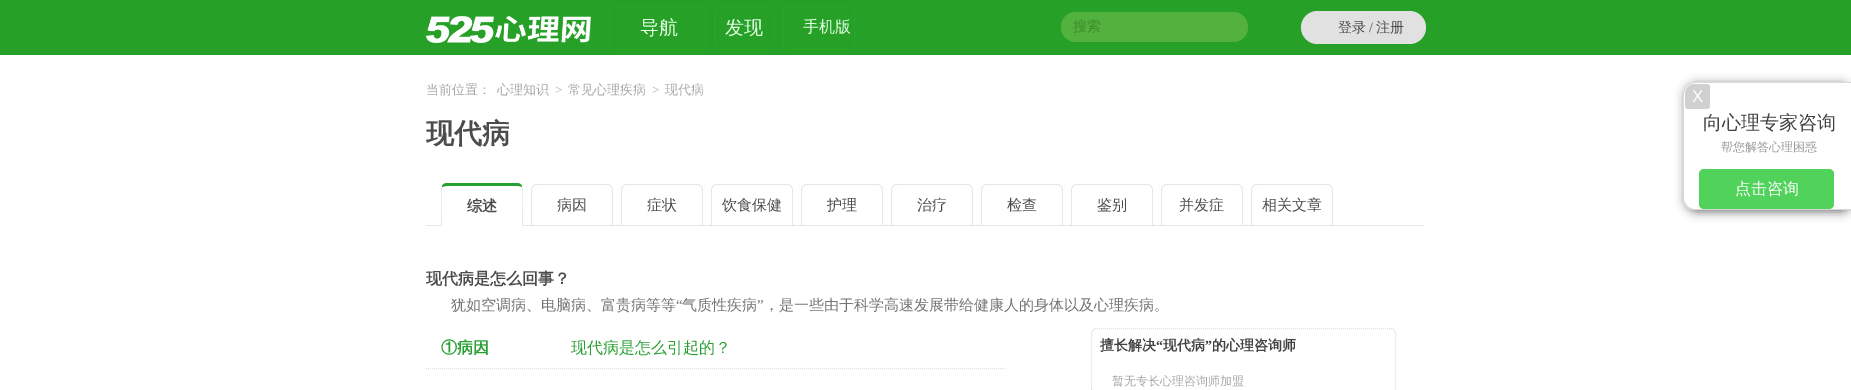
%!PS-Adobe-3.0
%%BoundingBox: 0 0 1851 390
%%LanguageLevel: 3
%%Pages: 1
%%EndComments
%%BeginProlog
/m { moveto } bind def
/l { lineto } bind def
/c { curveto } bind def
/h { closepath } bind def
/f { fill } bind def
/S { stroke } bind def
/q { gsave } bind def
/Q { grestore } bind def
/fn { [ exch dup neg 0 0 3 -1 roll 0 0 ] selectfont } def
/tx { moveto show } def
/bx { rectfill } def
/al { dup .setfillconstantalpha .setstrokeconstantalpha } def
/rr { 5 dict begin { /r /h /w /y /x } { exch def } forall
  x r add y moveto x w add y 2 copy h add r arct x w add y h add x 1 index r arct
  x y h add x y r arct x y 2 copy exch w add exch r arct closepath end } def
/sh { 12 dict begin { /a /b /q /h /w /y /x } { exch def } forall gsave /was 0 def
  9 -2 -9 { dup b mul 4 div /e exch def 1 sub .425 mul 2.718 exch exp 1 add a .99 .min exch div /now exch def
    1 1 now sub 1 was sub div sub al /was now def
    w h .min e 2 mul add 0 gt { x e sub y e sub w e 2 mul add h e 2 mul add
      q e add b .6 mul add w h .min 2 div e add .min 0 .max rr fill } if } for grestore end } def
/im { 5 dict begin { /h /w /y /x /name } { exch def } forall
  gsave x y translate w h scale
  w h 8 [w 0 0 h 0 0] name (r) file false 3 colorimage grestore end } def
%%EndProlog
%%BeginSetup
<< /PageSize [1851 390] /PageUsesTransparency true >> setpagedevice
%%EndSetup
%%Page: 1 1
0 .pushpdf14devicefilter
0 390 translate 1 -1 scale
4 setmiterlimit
1 setgray
0 0 1851 390 bx
0.149 0.627 0.153 setrgbcolor
0 0 1851 55 bx
(image0.raw) 425 15 166 28 im
0.153 0.651 0.157 setrgbcolor
609.5 6.5 96 43 4.5 rr S
/WenQuanYiZenHei-Medium 19 fn
0.898 1 0.898 setrgbcolor
(导航) 640 34 tx
0.153 0.651 0.157 setrgbcolor
714.5 6.5 59 43 4.5 rr S
0.898 1 0.898 setrgbcolor
(发现) 725 34 tx
0.153 0.651 0.157 setrgbcolor
782.5 6.5 72 42 4.5 rr S
/WenQuanYiZenHei-Medium 16 fn
0.898 1 0.898 setrgbcolor
(手机版) 803 32 tx
0.325 0.694 0.239 setrgbcolor
1076 12 m 1213 12 l 1213 42 l 1076 42 l 1067.5 42 1061 35.5 1061 27 c 1061 18.5 1067.5 12 1076 12 c h f
/WenQuanYiZenHei-Medium 14 fn
0.231 0.549 0.157 setrgbcolor
(搜索) 1073 31 tx
0.325 0.694 0.239 setrgbcolor
1213 12 m 1233 12 l 1241.5 12 1248 18.5 1248 27 c 1248 35.5 1241.5 42 1233 42 c 1213 42 l h f
0.882 setgray
1301 11 125 33 16.5 rr f
0.298 setgray
(登录) 1338 32 tx
/LiberationSerif-Regular 14 fn
(/) 1369 32 tx
/WenQuanYiZenHei-Medium 14 fn
(注册) 1376 32 tx
/WenQuanYiZenHei-Medium 13 fn
0.655 setgray
(当前位置：) 426 94 tx
(心理知识) 497 94 tx
/LiberationSerif-Regular 13 fn
(>) 555 94 tx
/WenQuanYiZenHei-Medium 13 fn
(常见心理疾病) 568 94 tx
/LiberationSerif-Regular 13 fn
(>) 652 94 tx
/WenQuanYiZenHei-Medium 13 fn
(现代病) 665 94 tx
q
426 55 1000 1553 10 rr clip newpath
/WenQuanYiZenHei-Bold 28 fn
0.298 setgray
(现代病) 426 143 tx
Q
0.902 setgray
426 225 998 1 bx
1 setgray
447 183 m 517 183 l 520.5 183 523 185.5 523 189 c 523 226 l 441 226 l 441 189 l 441 185.5 443.5 183 447 183 c h f
0.153 0.624 0.196 setrgbcolor
447 183 m 517 183 l 519 183 521 184 522 186 c 522 187 l 519 185 507 186 505 186 c 446 186 l 442 187 l 442 186 l 443 184 445 183 447 183 c h f
0.902 setgray
522 186 m 522 187 l 523 189 522 221 522 226 c 523 226 l 523 189 l h f
441 226 m 442 226 l 442 221 441 189 442 187 c 442 186 l 441 189 l h f
/WenQuanYiZenHei-Bold 15 fn
0.298 setgray
(综述) 467 211 tx
0.902 setgray
537 184 m 607 184 l 610 184 613 187 613 190 c 613 225 l 531 225 l 531 190 l 531 187 534 184 537 184 c h 537 185 m 607 185 l 610 185 612 187 612 190 c 612 225 l 532 225 l 532 190 l 532 187 534 185 537 185 c h eofill
/WenQuanYiZenHei-Medium 15 fn
0.298 setgray
(病因) 557 210 tx
0.902 setgray
627 184 m 697 184 l 700 184 703 187 703 190 c 703 225 l 621 225 l 621 190 l 621 187 624 184 627 184 c h 627 185 m 697 185 l 700 185 702 187 702 190 c 702 225 l 622 225 l 622 190 l 622 187 624 185 627 185 c h eofill
0.298 setgray
(症状) 647 210 tx
0.902 setgray
717 184 m 787 184 l 790 184 793 187 793 190 c 793 225 l 711 225 l 711 190 l 711 187 714 184 717 184 c h 717 185 m 787 185 l 790 185 792 187 792 190 c 792 225 l 712 225 l 712 190 l 712 187 714 185 717 185 c h eofill
0.298 setgray
(饮食保健) 722 210 tx
0.902 setgray
807 184 m 877 184 l 880 184 883 187 883 190 c 883 225 l 801 225 l 801 190 l 801 187 804 184 807 184 c h 807 185 m 877 185 l 880 185 882 187 882 190 c 882 225 l 802 225 l 802 190 l 802 187 804 185 807 185 c h eofill
0.298 setgray
(护理) 827 210 tx
0.902 setgray
897 184 m 967 184 l 970 184 973 187 973 190 c 973 225 l 891 225 l 891 190 l 891 187 894 184 897 184 c h 897 185 m 967 185 l 970 185 972 187 972 190 c 972 225 l 892 225 l 892 190 l 892 187 894 185 897 185 c h eofill
0.298 setgray
(治疗) 917 210 tx
0.902 setgray
987 184 m 1057 184 l 1060 184 1063 187 1063 190 c 1063 225 l 981 225 l 981 190 l 981 187 984 184 987 184 c h 987 185 m 1057 185 l 1060 185 1062 187 1062 190 c 1062 225 l 982 225 l 982 190 l 982 187 984 185 987 185 c h eofill
0.298 setgray
(检查) 1007 210 tx
0.902 setgray
1077 184 m 1147 184 l 1150 184 1153 187 1153 190 c 1153 225 l 1071 225 l 1071 190 l 1071 187 1074 184 1077 184 c h 1077 185 m 1147 185 l 1150 185 1152 187 1152 190 c 1152 225 l 1072 225 l 1072 190 l 1072 187 1074 185 1077 185 c h eofill
0.298 setgray
(鉴别) 1097 210 tx
0.902 setgray
1167 184 m 1237 184 l 1240 184 1243 187 1243 190 c 1243 225 l 1161 225 l 1161 190 l 1161 187 1164 184 1167 184 c h 1167 185 m 1237 185 l 1240 185 1242 187 1242 190 c 1242 225 l 1162 225 l 1162 190 l 1162 187 1164 185 1167 185 c h eofill
0.298 setgray
(并发症) 1179 210 tx
0.902 setgray
1257 184 m 1327 184 l 1330 184 1333 187 1333 190 c 1333 225 l 1251 225 l 1251 190 l 1251 187 1254 184 1257 184 c h 1257 185 m 1327 185 l 1330 185 1332 187 1332 190 c 1332 225 l 1252 225 l 1252 190 l 1252 187 1254 185 1257 185 c h eofill
0.298 setgray
(相关文章) 1262 210 tx
q
426 55 1000 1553 10 rr clip newpath
/WenQuanYiZenHei-Bold 16 fn
(现代病是怎么回事？) 426 284 tx
Q
0.451 setgray
(犹如空调病、电脑病、富贵病等等) 451 310 tx
/LiberationSerif-Regular 15 fn
(“) 676 310 tx
/WenQuanYiZenHei-Medium 15 fn
(气质性疾病) 682 310 tx
/LiberationSerif-Regular 15 fn
(”) 757 310 tx
/WenQuanYiZenHei-Medium 15 fn
(，是一些由于科学高速发展带给健康人的身体以及心理疾病。) 764 310 tx
0.882 setgray
[1 1] 0 setdash
426 368.5 m 1006 368.5 l S
/WenQuanYiZenHei-Bold 16 fn
0.153 0.624 0.196 setrgbcolor
(①病因) 441 353 tx
/WenQuanYiZenHei-Medium 16 fn
(现代病是怎么引起的？) 571 353 tx
0.882 setgray
1097 328.5 m 1390 328.5 l 1393 328.5 1395.5 331 1395.5 334 c 1395.5 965 l 1395.5 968 1393 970.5 1390 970.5 c 1097 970.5 l 1094 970.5 1091.5 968 1091.5 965 c 1091.5 334 l 1091.5 331 1094 328.5 1097 328.5 c h S
/WenQuanYiZenHei-Bold 14 fn
0.255 setgray
(擅长解决) 1100 350 tx
/LiberationSerif-Bold 14 fn
(“) 1156 350 tx
/WenQuanYiZenHei-Bold 14 fn
(现代病) 1163 350 tx
/LiberationSerif-Bold 14 fn
(”) 1205 350 tx
/WenQuanYiZenHei-Bold 14 fn
(的心理咨询师) 1212 350 tx
/WenQuanYiZenHei-Medium 12 fn
0.655 setgray
(暂无专长心理咨询师加盟) 1112 385 tx
0.447 setgray
1685 84 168 128 12 5 1 sh
1 setgray
1695 82 m 1851 82 l 1851 210 l 1695 210 l 1688.5 210 1683 204.5 1683 198 c 1683 94 l 1683 87.5 1688.5 82 1695 82 c h f
0.851 setgray
1695 82 m 1851 82 l 1851 210 l 1695 210 l 1688 210 1683 205 1683 198 c 1683 94 l 1683 87 1688 82 1695 82 c h 1695 83 m 1851 83 l 1851 209 l 1695 209 l 1689 209 1684 204 1684 198 c 1684 94 l 1684 88 1689 83 1695 83 c h eofill
0.816 setgray
1695 84 m 1707 84 l 1708.5 84 1710 85.5 1710 87 c 1710 106 l 1710 107.5 1708.5 109 1707 109 c 1688 109 l 1686.5 109 1685 107.5 1685 106 c 1685 94 l 1685 88.5 1689.5 84 1695 84 c h f
/LiberationSans-Regular 17 fn
1 setgray
(X) 1692 102 tx
/WenQuanYiZenHei-Medium 19 fn
0.255 setgray
(向心理专家咨询) 1703 129 tx
/WenQuanYiZenHei-Medium 12 fn
0.604 setgray
(帮您解答心理困惑) 1721 151 tx
0.314 0.824 0.357 setrgbcolor
1699 169 135 40 5 rr f
/WenQuanYiZenHei-Medium 16 fn
1 setgray
(点击咨询) 1735 194 tx
.poppdf14devicefilter showpage
%%EOF
